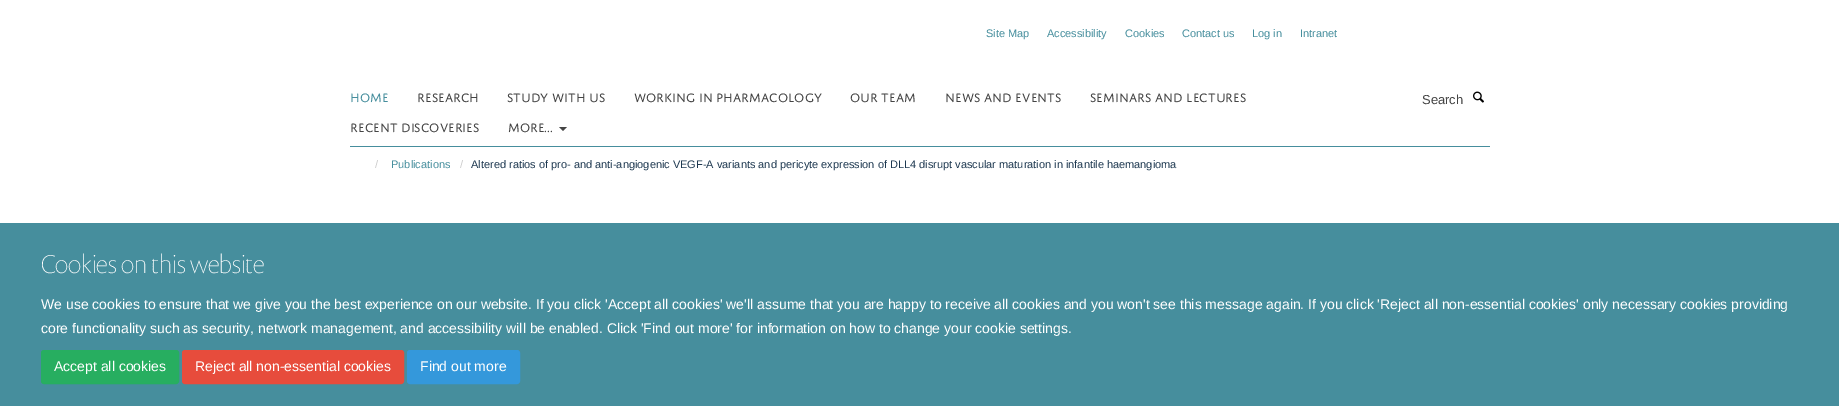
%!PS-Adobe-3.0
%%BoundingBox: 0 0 1839 406
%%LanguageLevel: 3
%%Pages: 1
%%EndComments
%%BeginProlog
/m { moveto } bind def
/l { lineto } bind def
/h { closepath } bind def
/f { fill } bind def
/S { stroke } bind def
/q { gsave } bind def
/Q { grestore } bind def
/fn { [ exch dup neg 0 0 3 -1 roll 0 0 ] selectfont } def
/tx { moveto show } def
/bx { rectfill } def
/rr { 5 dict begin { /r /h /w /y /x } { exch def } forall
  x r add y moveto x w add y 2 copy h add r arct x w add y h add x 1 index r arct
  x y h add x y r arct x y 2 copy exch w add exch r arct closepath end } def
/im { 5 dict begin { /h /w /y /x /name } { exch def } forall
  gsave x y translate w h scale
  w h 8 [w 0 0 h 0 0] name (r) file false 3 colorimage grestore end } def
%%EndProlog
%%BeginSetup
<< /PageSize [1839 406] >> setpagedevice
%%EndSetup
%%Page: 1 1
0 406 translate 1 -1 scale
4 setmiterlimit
1 setgray
0 0 1839 406 bx
/LiberationSans-Regular 11 fn
0.275 0.557 0.616 setrgbcolor
(Site Map) 986 37 tx
(Accessibility) 1047 37 tx
(Cookies) 1125 37 tx
(Contact us) 1182 37 tx
(Log in) 1252 37 tx
(Intranet) 1300 37 tx
350 146 1140 1 bx
/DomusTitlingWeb-Regular 13 fn
(HOME) 350 102 tx
0.267 setgray
(RESEARCH) 417 102 tx
(STUDY WITH US) 507 102 tx
(WORKING IN PHARMACOLOGY) 634 102 tx
(OUR TEAM) 850 102 tx
(NEWS AND EVENTS) 945 102 tx
(SEMINARS AND LECTURES) 1090 102 tx
(RECENT DISCOVERIES) 350 132 tx
(MORE...) 508 132 tx
559 127 m 567 127 l 563 131 l h f
/LiberationSans-Regular 13 fn
(Search) 1422 104 tx
(image0.raw) 1473 91 11 12 im
/LiberationSans-Regular 11 fn
0.8 setgray
(/) 375 168 tx
0.275 0.557 0.616 setrgbcolor
(Publications) 391 168 tx
0.8 setgray
(/) 460 168 tx
0.114 0.22 0.314 setrgbcolor
(Altered ratios of pro- and anti-angiogenic VEGF-A variants and pericyte expression of DLL4 disrupt vascular maturation in infantile haemangioma) 471 168 tx
0.275 0.557 0.616 setrgbcolor
0 223 1839 183 bx
/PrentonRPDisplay-Thin 26 fn
1 setgray
(Cookies on this website) 41 273 tx
/LiberationSans-Regular 14 fn
(We use cookies to ensure that we give you the best experience on our website. If you click 'Accept all cookies' we'll assume that you are happy to receive all cookies and you won't see this message again. If you click 'Reject all non-essential cookies' only necessary cookies providing) 41 309 tx
(core functionality such as security, network management, and accessibility will be enabled. Click 'Find out more' for information on how to change your cookie settings.) 41 333 tx
0.153 0.682 0.376 setrgbcolor
41.5 350.5 137 33 2.5 rr q f Q
S
1 setgray
(Accept all cookies) 54 371 tx
0.906 0.298 0.235 setrgbcolor
182.5 350.5 221 33 2.5 rr q f Q
S
1 setgray
(Reject all non-essential cookies) 195 371 tx
0.204 0.596 0.859 setrgbcolor
407.5 350.5 112 33 2.5 rr q f Q
S
1 setgray
(Find out more) 420 371 tx
showpage
%%EOF
